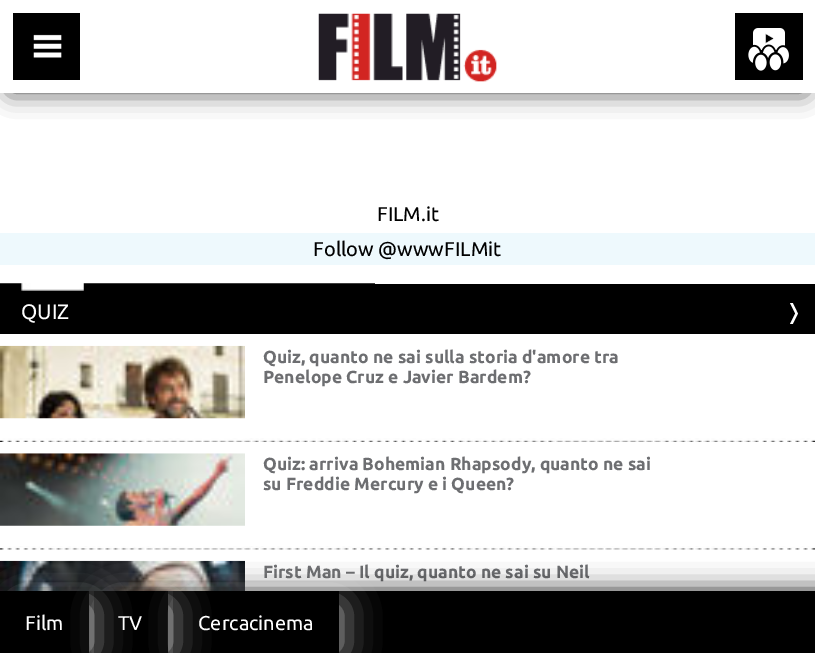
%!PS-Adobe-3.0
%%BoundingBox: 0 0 815 653
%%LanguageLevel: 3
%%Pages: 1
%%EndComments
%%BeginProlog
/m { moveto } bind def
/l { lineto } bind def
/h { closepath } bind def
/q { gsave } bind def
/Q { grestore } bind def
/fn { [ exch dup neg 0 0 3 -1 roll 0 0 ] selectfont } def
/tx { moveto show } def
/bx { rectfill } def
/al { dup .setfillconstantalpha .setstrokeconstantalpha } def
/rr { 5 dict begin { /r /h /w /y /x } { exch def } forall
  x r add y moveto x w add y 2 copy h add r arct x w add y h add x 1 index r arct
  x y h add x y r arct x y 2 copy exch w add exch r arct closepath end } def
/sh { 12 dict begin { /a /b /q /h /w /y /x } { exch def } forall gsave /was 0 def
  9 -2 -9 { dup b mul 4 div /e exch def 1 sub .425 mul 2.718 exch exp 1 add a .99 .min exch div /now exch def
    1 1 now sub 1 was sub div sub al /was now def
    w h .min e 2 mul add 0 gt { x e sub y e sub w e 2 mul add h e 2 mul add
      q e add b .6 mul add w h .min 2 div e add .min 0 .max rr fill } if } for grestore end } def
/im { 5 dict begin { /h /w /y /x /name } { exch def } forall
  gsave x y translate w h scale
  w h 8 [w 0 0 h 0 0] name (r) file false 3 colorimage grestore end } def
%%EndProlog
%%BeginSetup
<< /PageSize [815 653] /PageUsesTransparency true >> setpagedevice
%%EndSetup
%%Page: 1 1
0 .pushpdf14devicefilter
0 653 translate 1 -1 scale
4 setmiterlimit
1 setgray
0 0 815 653 bx
0 setgray
10 19 795 72 0 12.5 0.8 sh
1 setgray
0 0 815 93 bx
0 setgray
13 13 67 67 bx
(image0.raw) 33 34 29 24 im
(image1.raw) 318 13 179 69 im
735 13 68 67 bx
(image2.raw) 748 28 41 43 im
/Ubuntu-Regular 20 fn
(FILM.it) 377 221 tx
0.933 0.976 0.992 setrgbcolor
0 233 815 32 bx
0 setgray
(Follow @wwwFILMit) 313 256 tx
0 284 815 50 bx
(image3.raw) 0 283 375 8 im
/Ubuntu-Regular 21 fn
1 setgray
(QUIZ) 21 319 tx
/DejaVuSans-Regular 21 fn
(❭) 785 319 tx
(image4.raw) 0 345 245 74 im
/Ubuntu-Bold 17.5 fn
0.427 0.431 0.443 setrgbcolor
(Quiz, quanto ne sai sulla storia d'amore tra) 263 363 tx
(Penelope Cruz e Javier Bardem?) 263 383 tx
(image5.raw) 0 438 815 4 im
(image6.raw) 0 453 245 73 im
(Quiz: arriva Bohemian Rhapsody, quanto ne sai) 263 470 tx
(su Freddie Mercury e i Queen?) 263 490 tx
(image7.raw) 0 546 815 4 im
(image8.raw) 0 560 245 31 im
(First Man – Il quiz, quanto ne sai su Neil) 263 578 tx
0 setgray
-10 590 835 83 0 12.5 0.8 sh
0 591 815 62 bx
q
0 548 m 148 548 l 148 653 l 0 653 l h 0 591 m 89 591 l 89 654 l 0 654 l h eoclip newpath
1 setgray
19 606 71 45 0 19 0.74 sh
Q
/Ubuntu-Regular 20 fn
1 setgray
(Film) 25 630 tx
q
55 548 m 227 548 l 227 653 l 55 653 l h 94 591 m 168 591 l 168 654 l 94 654 l h eoclip newpath
113 606 56 45 0 19 0.74 sh
Q
(TV) 118 630 tx
q
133 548 m 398 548 l 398 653 l 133 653 l h 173 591 m 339 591 l 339 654 l 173 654 l h eoclip newpath
191 606 149 45 0 19 0.74 sh
Q
(Cercacinema) 198 630 tx
.poppdf14devicefilter showpage
%%EOF
